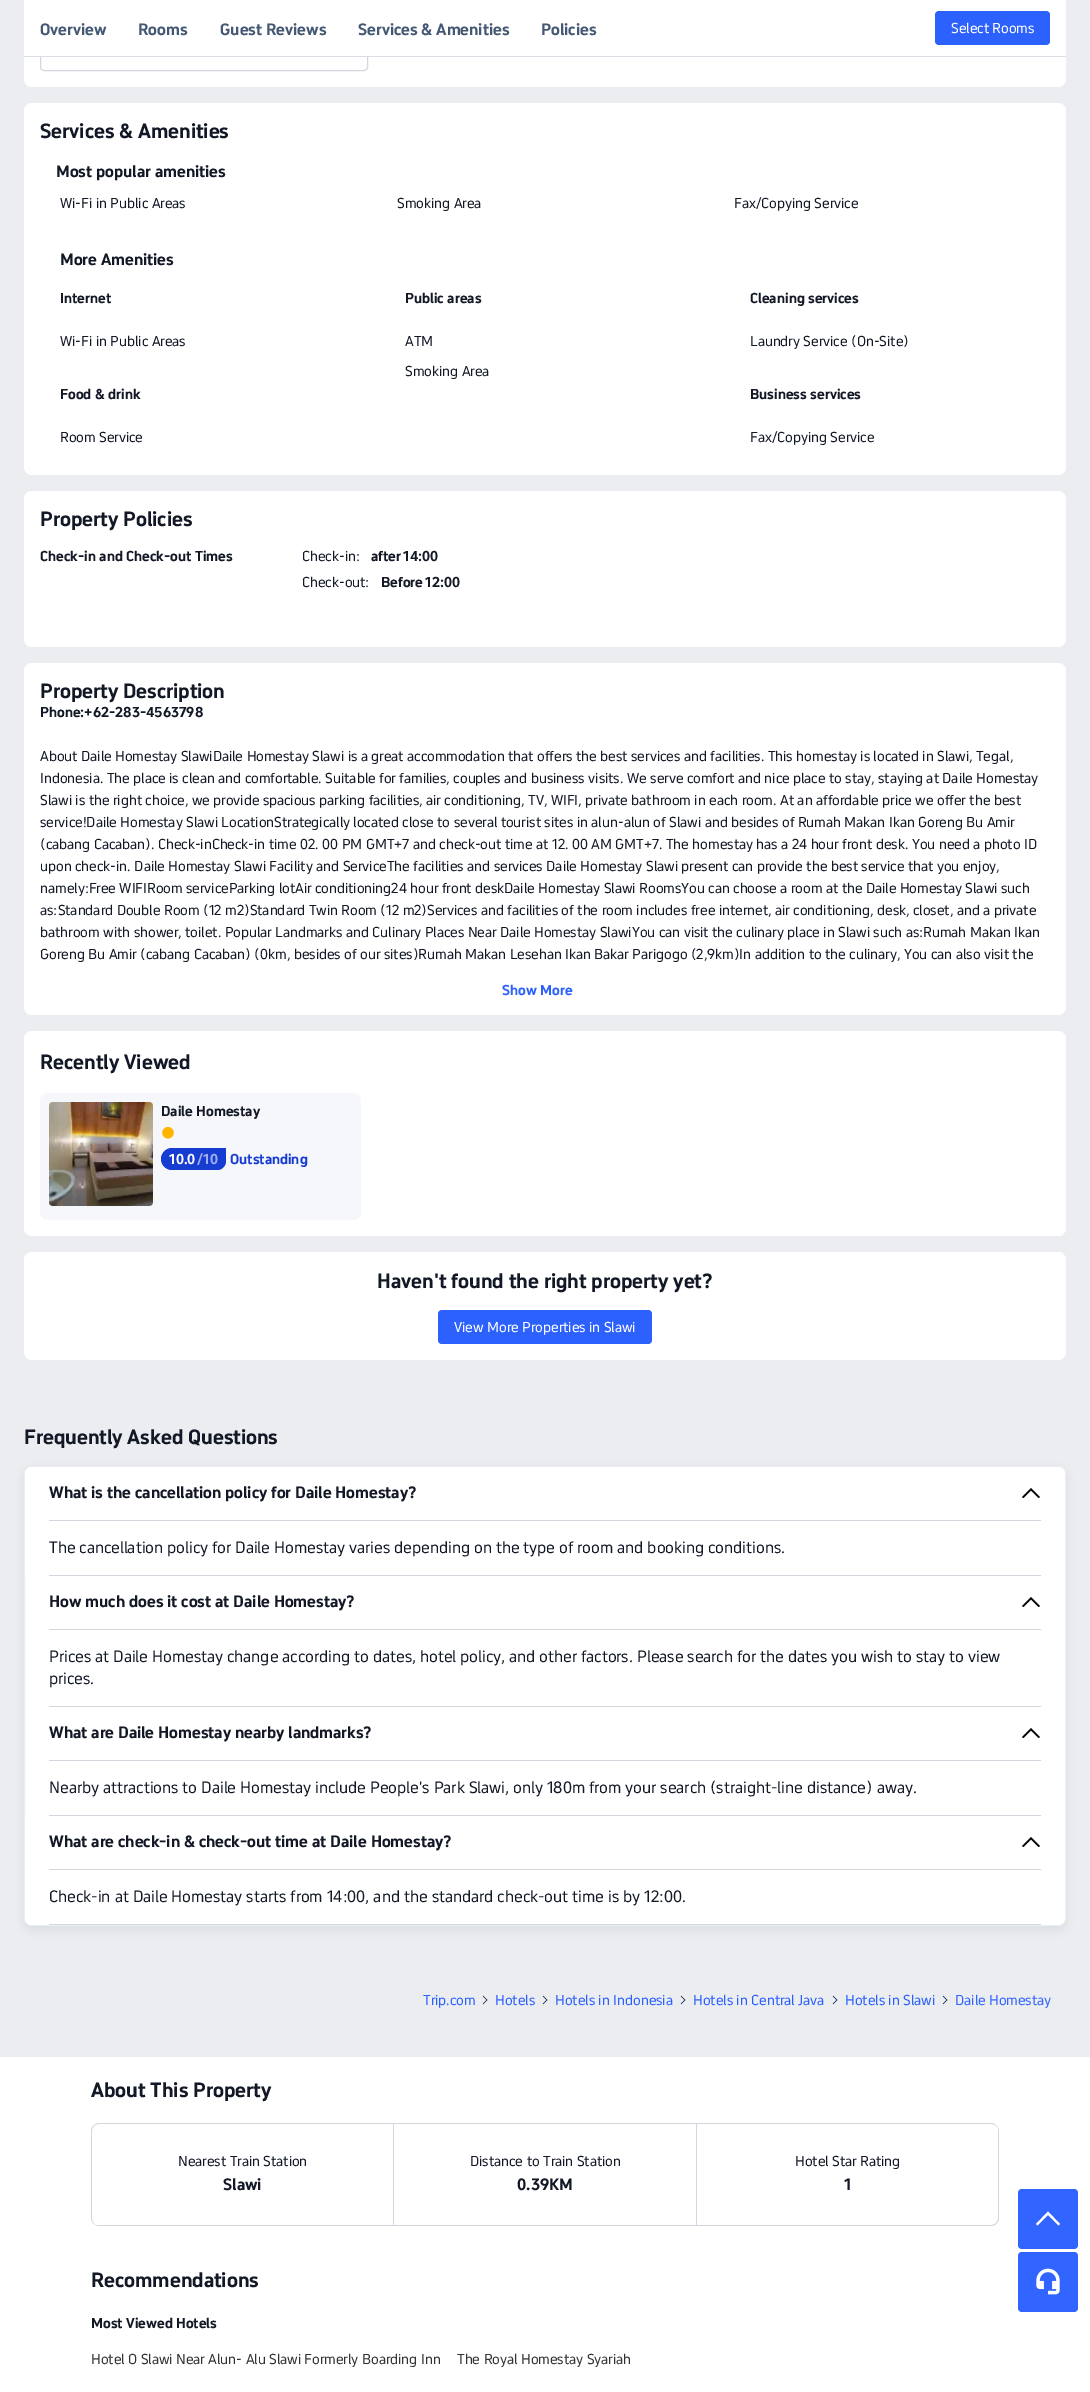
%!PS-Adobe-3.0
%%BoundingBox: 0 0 1090 2392
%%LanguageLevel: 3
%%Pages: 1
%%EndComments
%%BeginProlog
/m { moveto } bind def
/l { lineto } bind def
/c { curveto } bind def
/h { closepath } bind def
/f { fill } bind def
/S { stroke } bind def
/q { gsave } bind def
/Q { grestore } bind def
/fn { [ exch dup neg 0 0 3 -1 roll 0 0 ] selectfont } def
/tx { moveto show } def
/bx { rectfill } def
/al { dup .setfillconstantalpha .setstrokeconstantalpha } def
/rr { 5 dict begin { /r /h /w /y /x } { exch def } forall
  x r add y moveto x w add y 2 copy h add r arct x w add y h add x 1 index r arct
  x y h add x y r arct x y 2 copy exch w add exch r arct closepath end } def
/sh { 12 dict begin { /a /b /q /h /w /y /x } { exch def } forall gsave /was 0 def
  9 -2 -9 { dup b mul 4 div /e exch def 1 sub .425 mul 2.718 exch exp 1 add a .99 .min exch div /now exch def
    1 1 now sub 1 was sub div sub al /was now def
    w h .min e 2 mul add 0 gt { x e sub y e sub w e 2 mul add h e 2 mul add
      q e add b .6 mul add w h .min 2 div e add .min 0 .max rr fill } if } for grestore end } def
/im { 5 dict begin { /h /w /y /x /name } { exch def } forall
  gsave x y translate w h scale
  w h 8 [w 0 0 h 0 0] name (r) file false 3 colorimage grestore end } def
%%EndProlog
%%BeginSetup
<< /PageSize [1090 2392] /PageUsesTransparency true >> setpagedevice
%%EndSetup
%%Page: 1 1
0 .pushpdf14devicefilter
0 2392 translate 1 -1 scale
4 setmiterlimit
0.922 0.929 0.945 setrgbcolor
0 0 1090 2392 bx
1 setgray
24 -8 1042 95 8 rr f
0.831 0.843 0.871 setrgbcolor
40.5 -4.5 327 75 3.5 rr S
1 setgray
32 -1 m 1058 -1 l 1062.5 -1 1066 2.5 1066 7 c 1066 57 l 24 57 l 24 7 l 24 2.5 27.5 -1 32 -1 c h f
0.855 0.875 0.902 setrgbcolor
24 56 1042 1 bx
/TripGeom-Bold 16 fn
0.271 0.345 0.451 setrgbcolor
(Overview) 40 35 tx
(Rooms) 138 35 tx
(Guest Reviews) 220 35 tx
(Services & Amenities) 358 35 tx
(Policies) 541 35 tx
0.173 0.38 0.996 setrgbcolor
935 11 115 34 4 rr f
/TripGeom-Regular 14 fn
1 setgray
(Select Rooms) 951 33 tx
24 103 1042 372 8 rr f
/TripGeom-Bold 20 fn
0.071 0.094 0.149 setrgbcolor
(Services & Amenities) 40 138 tx
/TripGeom-Bold 16 fn
(Most popular amenities) 56 177 tx
/TripGeom-Regular 14 fn
(Wi-Fi in Public Areas) 60 208 tx
(Smoking Area) 397 208 tx
(Fax/Copying Service) 734 208 tx
/TripGeom-Bold 16 fn
(More Amenities) 60 265 tx
/TripGeom-Bold 14 fn
(Internet) 60 303 tx
/TripGeom-Regular 14 fn
(Wi-Fi in Public Areas) 60 346 tx
/TripGeom-Bold 14 fn
(Public areas) 405 303 tx
/TripGeom-Regular 14 fn
(ATM) 405 346 tx
(Smoking Area) 405 376 tx
/TripGeom-Bold 14 fn
(Cleaning services) 750 303 tx
/TripGeom-Regular 14 fn
(Laundry Service \(On-Site\)) 750 346 tx
/TripGeom-Bold 14 fn
(Food & drink) 60 399 tx
/TripGeom-Regular 14 fn
(Room Service) 60 442 tx
/TripGeom-Bold 14 fn
(Business services) 750 399 tx
/TripGeom-Regular 14 fn
(Fax/Copying Service) 750 442 tx
1 setgray
24 491 1042 156 8 rr f
/TripGeom-Bold 20 fn
0.071 0.094 0.149 setrgbcolor
(Property Policies) 40 526 tx
/TripGeom-Bold 14 fn
(Check-in and Check-out Times) 40 561 tx
/TripGeom-Regular 14 fn
(Check-in:) 302 561 tx
/TripGeom-Bold 14 fn
371 561 m -1 0 32 (after 14:00) widthshow
/TripGeom-Regular 14 fn
(Check-out:) 302 587 tx
/TripGeom-Bold 14 fn
381 587 m -1 0 32 (Before 12:00) widthshow
1 setgray
24 663 1042 352 8 rr f
/TripGeom-Bold 20 fn
0.071 0.094 0.149 setrgbcolor
(Property Description) 40 698 tx
/TripGeom-Bold 14 fn
(Phone:+62-283-4563798) 40 717 tx
/TripGeom-Regular 14 fn
(About Daile Homestay SlawiDaile Homestay Slawi is a great accommodation that offers the best services and facilities. This homestay is located in Slawi, Tegal,) 40 761 tx
(Indonesia. The place is clean and comfortable. Suitable for families, couples and business visits. We serve comfort and nice place to stay, staying at Daile Homestay) 40 783 tx
(Slawi is the right choice, we provide spacious parking facilities, air conditioning, TV, WIFI, private bathroom in each room. At an affordable price we offer the best) 40 805 tx
(service!Daile Homestay Slawi LocationStrategically located close to several tourist sites in alun-alun of Slawi and besides of Rumah Makan Ikan Goreng Bu Amir) 40 827 tx
(\(cabang Cacaban\). Check-inCheck-in time 02. 00 PM GMT+7 and check-out time at 12. 00 AM GMT+7. The homestay has a 24 hour front desk. You need a photo ID) 40 849 tx
(upon check-in. Daile Homestay Slawi Facility and ServiceThe facilities and services Daile Homestay Slawi present can provide the best service that you enjoy,) 40 871 tx
(namely:Free WIFIRoom serviceParking lotAir conditioning24 hour front deskDaile Homestay Slawi RoomsYou can choose a room at the Daile Homestay Slawi such) 40 893 tx
(as:Standard Double Room \(12 m2\)Standard Twin Room \(12 m2\)Services and facilities of the room includes free internet, air conditioning, desk, closet, and a private) 40 915 tx
(bathroom with shower, toilet. Popular Landmarks and Culinary Places Near Daile Homestay SlawiYou can visit the culinary place in Slawi such as:Rumah Makan Ikan) 40 937 tx
(Goreng Bu Amir \(cabang Cacaban\) \(0km, besides of our sites\)Rumah Makan Lesehan Ikan Bakar Parigogo \(2,9km\)In addition to the culinary, You can also visit the) 40 959 tx
/TripGeom-Bold 14 fn
0.173 0.38 0.996 setrgbcolor
(Show More) 502 995 tx
1 setgray
24 1031 1042 205 8 rr f
/TripGeom-Bold 20 fn
0.071 0.094 0.149 setrgbcolor
(Recently Viewed) 40 1069 tx
0.965 0.969 0.98 setrgbcolor
40 1093 321 127 8 rr f
(image0.raw) 49 1102 104 104 im
/TripGeom-Bold 14 fn
0.071 0.094 0.149 setrgbcolor
(Daile Homestay) 161 1116 tx
(image1.raw) 162 1126 12 13 im
0.09 0.235 0.824 setrgbcolor
172 1148 m 226 1148 l 226 1161 l 226 1166 222 1170 217 1170 c 172 1170 l 166 1170 161 1165 161 1159 c 161 1153 166 1148 172 1148 c h f
1 setgray
(10.0) 169 1164 tx
0.635 0.694 0.929 setrgbcolor
(/10) 197 1164 tx
0.09 0.235 0.824 setrgbcolor
(Outstanding) 230 1164 tx
1 setgray
24 1252 1042 108 8 rr f
/TripGeom-Bold 20 fn
0.071 0.094 0.149 setrgbcolor
(Haven't found the right property yet?) 377 1288 tx
0.173 0.38 0.996 setrgbcolor
438 1310 214 34 4 rr f
/TripGeom-Regular 14 fn
1 setgray
(View More Properties in Slawi) 454 1332 tx
/TripGeom-Bold 20 fn
0.071 0.094 0.149 setrgbcolor
(Frequently Asked Questions) 24 1444 tx
24 1470 1042 460 8 4 0.08 sh
1 setgray
24.5 1466.5 1041 459 7.5 rr q f Q
0.922 0.929 0.945 setrgbcolor
S
1 setgray
32 1467 m 1058 1467 l 1062 1467 1065 1470 1065 1474 c 1065 1576 l 25 1576 l 25 1474 l 25 1470 28 1467 32 1467 c h f
0.831 0.843 0.871 setrgbcolor
49 1520 992 1 bx
/TripGeom-Bold 16 fn
0.071 0.094 0.149 setrgbcolor
(What is the cancellation policy for Daile Homestay?) 49 1498 tx
0 setgray
1031 1490.5 m 1038.5 1498 l 1040 1497 l 1031 1488 l 1022 1497 l 1023.5 1498 l h f
0.831 0.843 0.871 setrgbcolor
49 1575 992 1 bx
/TripGeom-Regular 16 fn
0.071 0.094 0.149 setrgbcolor
(The cancellation policy for Daile Homestay varies depending on the type of room and booking conditions.) 49 1553 tx
0.831 0.843 0.871 setrgbcolor
49 1629 992 1 bx
/TripGeom-Bold 16 fn
0.071 0.094 0.149 setrgbcolor
(How much does it cost at Daile Homestay?) 49 1607 tx
0 setgray
1031 1599.5 m 1038.5 1607 l 1040 1606 l 1031 1597 l 1022 1606 l 1023.5 1607 l h f
0.831 0.843 0.871 setrgbcolor
49 1706 992 1 bx
/TripGeom-Regular 16 fn
0.071 0.094 0.149 setrgbcolor
(Prices at Daile Homestay change according to dates, hotel policy, and other factors. Please search for the dates you wish to stay to view) 49 1662 tx
(prices.) 49 1684 tx
0.831 0.843 0.871 setrgbcolor
49 1760 992 1 bx
/TripGeom-Bold 16 fn
0.071 0.094 0.149 setrgbcolor
(What are Daile Homestay nearby landmarks?) 49 1738 tx
0 setgray
1031 1730.5 m 1038.5 1738 l 1040 1737 l 1031 1728 l 1022 1737 l 1023.5 1738 l h f
0.831 0.843 0.871 setrgbcolor
49 1815 992 1 bx
/TripGeom-Regular 16 fn
0.071 0.094 0.149 setrgbcolor
(Nearby attractions to Daile Homestay include People's Park Slawi, only 180m from your search \(straight-line distance\) away.) 49 1793 tx
1 setgray
25 1816 m 1065 1816 l 1065 1918 l 1065 1922 1062 1925 1058 1925 c 32 1925 l 28 1925 25 1922 25 1918 c h f
0.831 0.843 0.871 setrgbcolor
49 1869 992 1 bx
/TripGeom-Bold 16 fn
0.071 0.094 0.149 setrgbcolor
(What are check-in & check-out time at Daile Homestay?) 49 1847 tx
0 setgray
1031 1839.5 m 1038.5 1847 l 1040 1846 l 1031 1837 l 1022 1846 l 1023.5 1847 l h f
0.831 0.843 0.871 setrgbcolor
49 1924 992 1 bx
/TripGeom-Regular 16 fn
0.071 0.094 0.149 setrgbcolor
(Check-in at Daile Homestay starts from 14:00, and the standard check-out time is by 12:00.) 49 1902 tx
/TripGeom-Regular 14 fn
0.173 0.38 0.996 setrgbcolor
(Trip.com) 423 2005 tx
(image2.raw) 482 1995 6 10 im
(Hotels) 495 2005 tx
(image2.raw) 542 1995 6 10 im
(Hotels in Indonesia) 555 2005 tx
(image2.raw) 680 1995 6 10 im
(Hotels in Central Java) 693 2005 tx
(image2.raw) 832 1995 6 10 im
(Hotels in Slawi) 845 2005 tx
(image2.raw) 942 1995 6 10 im
0.196 0.392 1 setrgbcolor
(Daile Homestay) 955 2005 tx
1 setgray
0 2057 1090 335 bx
0.196 0.392 1 setrgbcolor
1018 2189 60 60 4 rr f
1 setgray
1048 2215 m 1058.5 2225.5 l 1060 2224 l 1048 2211.5 l 1036 2224 l 1037.5 2225.5 l h f
0.196 0.392 1 setrgbcolor
1018 2252 60 60 4 rr f
(image3.raw) 1036 2268 24 27 im
/TripGeom-Bold 20 fn
0.071 0.094 0.149 setrgbcolor
(About This Property) 91 2097 tx
0.831 0.843 0.871 setrgbcolor
99 2123 m 991 2123 l 995 2123 999 2127 999 2131 c 999 2218 l 999 2222 995 2226 991 2226 c 99 2226 l 95 2226 91 2222 91 2218 c 91 2131 l 91 2127 95 2123 99 2123 c h 99 2124 m 991 2124 l 995 2124 999 2127 999 2131 c 999 2218 l 999 2222 995 2226 991 2226 c 99 2226 l 95 2226 92 2222 92 2218 c 92 2131 l 92 2127 95 2124 99 2124 c h eofill
393 2124 1 102 bx
99 2226 m 394 2226 l 394 2225 l 96 2225 l h f
/TripGeom-Regular 14 fn
0.071 0.094 0.149 setrgbcolor
(Nearest Train Station) 178 2166 tx
/TripGeom-Bold 16 fn
(Slawi) 223 2190 tx
0.831 0.843 0.871 setrgbcolor
696 2124 1 102 bx
394 2225 303 1 bx
/TripGeom-Regular 14 fn
0.071 0.094 0.149 setrgbcolor
(Distance to Train Station) 470 2166 tx
/TripGeom-Bold 16 fn
(0.39KM) 517 2190 tx
0.831 0.843 0.871 setrgbcolor
697 2226 m 991 2226 l 995 2226 999 2222 999 2218 c 999 2131 l 998 2128 l 998 2218 l 998 2222 995 2225 991 2225 c 697 2225 l h f
/TripGeom-Regular 14 fn
0.071 0.094 0.149 setrgbcolor
(Hotel Star Rating) 795 2166 tx
/TripGeom-Bold 16 fn
(1) 844 2190 tx
/TripGeom-Bold 20 fn
(Recommendations) 91 2287 tx
/TripGeom-Bold 14 fn
(Most Viewed Hotels) 91 2328 tx
/TripGeom-Regular 14 fn
0.2 setgray
(Hotel O Slawi Near Alun- Alu Slawi Formerly Boarding Inn) 91 2364 tx
(The Royal Homestay Syariah) 457 2364 tx
.poppdf14devicefilter showpage
%%EOF
